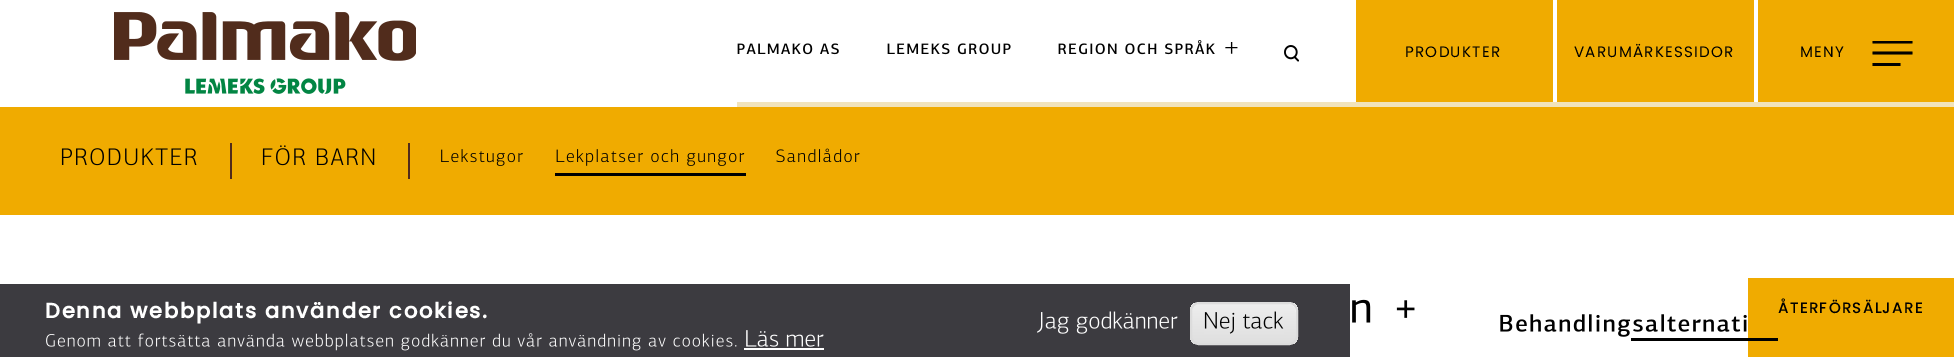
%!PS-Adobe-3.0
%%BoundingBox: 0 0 1954 357
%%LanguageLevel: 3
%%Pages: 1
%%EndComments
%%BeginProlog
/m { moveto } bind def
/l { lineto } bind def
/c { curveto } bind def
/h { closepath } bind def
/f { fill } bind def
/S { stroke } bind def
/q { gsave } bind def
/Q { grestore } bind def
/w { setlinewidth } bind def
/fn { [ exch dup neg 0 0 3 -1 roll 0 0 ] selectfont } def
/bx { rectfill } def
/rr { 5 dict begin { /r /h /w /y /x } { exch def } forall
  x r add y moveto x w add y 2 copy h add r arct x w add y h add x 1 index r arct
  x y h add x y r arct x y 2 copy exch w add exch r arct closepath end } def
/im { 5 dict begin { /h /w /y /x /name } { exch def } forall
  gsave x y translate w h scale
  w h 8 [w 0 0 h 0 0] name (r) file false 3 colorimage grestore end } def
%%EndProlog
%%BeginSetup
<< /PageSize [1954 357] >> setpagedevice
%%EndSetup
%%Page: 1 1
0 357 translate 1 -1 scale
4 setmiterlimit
1 setgray
0 0 1954 357 bx
0.235 0.231 0.251 setrgbcolor
0 284 1350 73 bx
/Poppins-Bold 21 fn
1 setgray
45 318 m 1.75 0 (Denna webbplats använder cookies.) ashow
(image0.raw) 46 333 691 18 im
(image1.raw) 746 330 78 17 im
744 348 80 2 bx
(image2.raw) 1037 311 141 23 im
q
1190 302 108 43 9 rr clip newpath
q 1190 303 m 1298 303 l 1298 344 l 1190 344 l h clip newpath
<< /ShadingType 2 /ColorSpace /DeviceRGB /Coords [1244 303 1244 344] /Extend [true true] /Function << /FunctionType 3 /Domain [0 1] /Functions [<< /FunctionType 2 /Domain [0 1] /C0 [0.929 0.929 0.929] /C1 [0.929 0.929 0.929] /N 1 >> << /FunctionType 2 /Domain [0 1] /C0 [0.929 0.929 0.929] /C1 [0.875 0.875 0.875] /N 1 >>] /Bounds [0.05] /Encode [0 1 0 1] >> >> shfill Q
Q
1198 304 m 1288 304 l 1293 304 1296 308 1296 312 c 1296 299 1281 303 1273 303 c 1214 303 l 1206 303 1191 299 1191 312 c 1191 308 1194 304 1198 304 c h f
0.863 setgray
2 w
1191 303 106 41 8 rr S
(image3.raw) 1204 311 80 23 im
(image4.raw) 114 12 302 82 im
(image5.raw) 737 43 102 12 im
(image6.raw) 887 43 124 12 im
(image7.raw) 1058 40 157 15 im
(image8.raw) 1225 42 13 12 im
(image9.raw) 1284 45 15 17 im
0.941 0.671 0 setrgbcolor
1356 0 197 102 bx
/Poppins-Regular 15.1 fn
0 setgray
1405 57 m 1.25 0 (PRODUKTER) ashow
0.941 0.671 0 setrgbcolor
1557 0 197 102 bx
0 setgray
1574 57 m 1.25 0 (VARUMÄRKESSIDOR) ashow
0.941 0.671 0 setrgbcolor
1758 0 196 102 bx
0 setgray
1800 57 m 1.25 0 (MENY) ashow
q
1872 41 41 25 rectclip
2.8 w
2 setlinecap
1874 42 m 1911 42 l 1874 53 m 1911 53 l 1874 64.5 m 1899 64.5 l S
Q
0.945 0.89 0.733 setrgbcolor
737 102 1217 5 bx
0.941 0.671 0 setrgbcolor
0 107 1954 108 bx
(image10.raw) 61 148 136 18 im
0.318 0.169 0.106 setrgbcolor
230 143 2 36 bx
(image11.raw) 262 145 113 21 im
408 143 2 36 bx
(image12.raw) 441 149 82 17 im
0 setgray
555 173 191 3 bx
(image13.raw) 556 149 189 17 im
(image14.raw) 776 148 84 15 im
(image15.raw) 1352 299 63 24 im
(image16.raw) 1500 314 247 23 im
0.941 0.671 0 setrgbcolor
1748 278 206 79 bx
/Poppins-Medium 15.1 fn
0 setgray
1778 313 m 1.25 0 (ÅTERFÖRSÄLJARE) ashow
1631 338 147 3 bx
showpage
%%EOF
